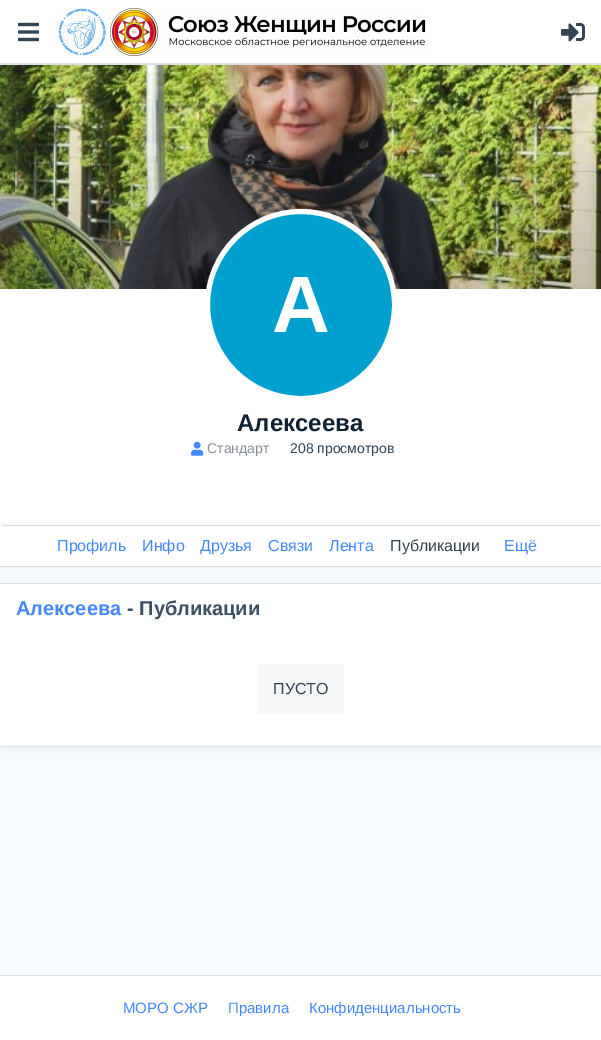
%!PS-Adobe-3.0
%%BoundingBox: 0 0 601 1040
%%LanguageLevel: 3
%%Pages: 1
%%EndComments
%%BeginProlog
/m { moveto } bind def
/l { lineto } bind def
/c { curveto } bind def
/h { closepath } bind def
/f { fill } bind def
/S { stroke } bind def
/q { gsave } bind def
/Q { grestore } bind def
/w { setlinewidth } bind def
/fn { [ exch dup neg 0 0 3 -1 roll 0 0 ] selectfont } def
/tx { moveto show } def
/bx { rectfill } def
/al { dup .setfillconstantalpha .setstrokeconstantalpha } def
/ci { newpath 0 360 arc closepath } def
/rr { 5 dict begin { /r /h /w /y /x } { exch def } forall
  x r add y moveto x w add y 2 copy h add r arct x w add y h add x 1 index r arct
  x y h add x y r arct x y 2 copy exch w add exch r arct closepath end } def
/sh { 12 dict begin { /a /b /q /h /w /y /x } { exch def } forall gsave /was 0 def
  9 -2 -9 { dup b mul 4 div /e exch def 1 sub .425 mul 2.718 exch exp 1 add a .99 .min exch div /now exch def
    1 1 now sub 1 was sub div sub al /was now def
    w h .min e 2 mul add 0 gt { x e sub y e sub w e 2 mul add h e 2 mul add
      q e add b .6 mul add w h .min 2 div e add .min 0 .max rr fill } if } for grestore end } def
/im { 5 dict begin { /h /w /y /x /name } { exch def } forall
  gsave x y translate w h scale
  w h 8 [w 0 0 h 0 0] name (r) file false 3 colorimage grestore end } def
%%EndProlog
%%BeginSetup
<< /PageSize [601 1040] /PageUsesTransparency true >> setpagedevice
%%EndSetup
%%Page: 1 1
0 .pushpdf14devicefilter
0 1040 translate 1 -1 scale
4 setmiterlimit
0.973 0.988 1 setrgbcolor
0 0 601 1040 bx
1 setgray
0 0 601 63 bx
(image0.raw) 18 22 21 20 im
(image1.raw) 58 8 368 48 im
(image2.raw) 561 23 24 19 im
0 289 601 236 bx
0.859 0.878 0.902 setrgbcolor
0 63 601 2 bx
(image3.raw) 0 65 601 224 im
0 0.627 0.808 setrgbcolor
301 305 93.5 ci q f Q
1 setgray
5 w
S
/LiberationSans-Bold 80 fn
(А) 272 332 tx
/LiberationSans-Bold 24 fn
0.067 0.133 0.2 setrgbcolor
(Алексеева) 237 431 tx
(image4.raw) 191 441 13 15 im
/LiberationSans-Regular 14 fn
0.529 0.553 0.592 setrgbcolor
(Стандарт) 207 453 tx
0.2 0.267 0.333 setrgbcolor
(208 просмотров) 290 453 tx
0 525 601 42 3 1.5 0.1 sh
1 setgray
3 525 m 598 525 l 599.5 525 601 526.5 601 528 c 601 567 l 0 567 l 0 528 l 0 526.5 1.5 525 3 525 c h f
0.3 al
0.533 0.6 0.667 setrgbcolor
2 525 598 1 bx
1 al
0.859 0.878 0.902 setrgbcolor
0 566 601 1 bx
/LiberationSans-Regular 16 fn
0.267 0.533 1 setrgbcolor
(Профиль) 57 551 tx
(Инфо) 142 551 tx
(Друзья) 200 551 tx
(Связи) 268 551 tx
(Лента) 329 551 tx
0.2 0.267 0.333 setrgbcolor
(Публикации) 390 551 tx
0.267 0.533 1 setrgbcolor
(Ещё) 504 551 tx
0 setgray
0 585 601 164 0 6 0.05 sh
0.996 1 1 setrgbcolor
0 584 601 162 bx
0.875 0.89 0.902 setrgbcolor
0 583 601 1 bx
0 746 601 1 bx
/LiberationSans-Bold 20 fn
0.267 0.533 1 setrgbcolor
(Алексеева) 16 615 tx
0.239 0.314 0.384 setrgbcolor
(- Публикации) 127 615 tx
0.965 0.969 0.969 setrgbcolor
257 664 87 50 3 rr f
/LiberationSans-Regular 16 fn
0.2 0.267 0.333 setrgbcolor
(ПУСТО) 273 694 tx
1 setgray
0 976 601 64 bx
0.859 0.878 0.902 setrgbcolor
0 975 601 1 bx
/LiberationSans-Regular 15 fn
0.267 0.533 1 setrgbcolor
(МОРО СЖР) 123 1013 tx
(Правила) 228 1013 tx
(Конфиденциальность) 309 1013 tx
.poppdf14devicefilter showpage
%%EOF
